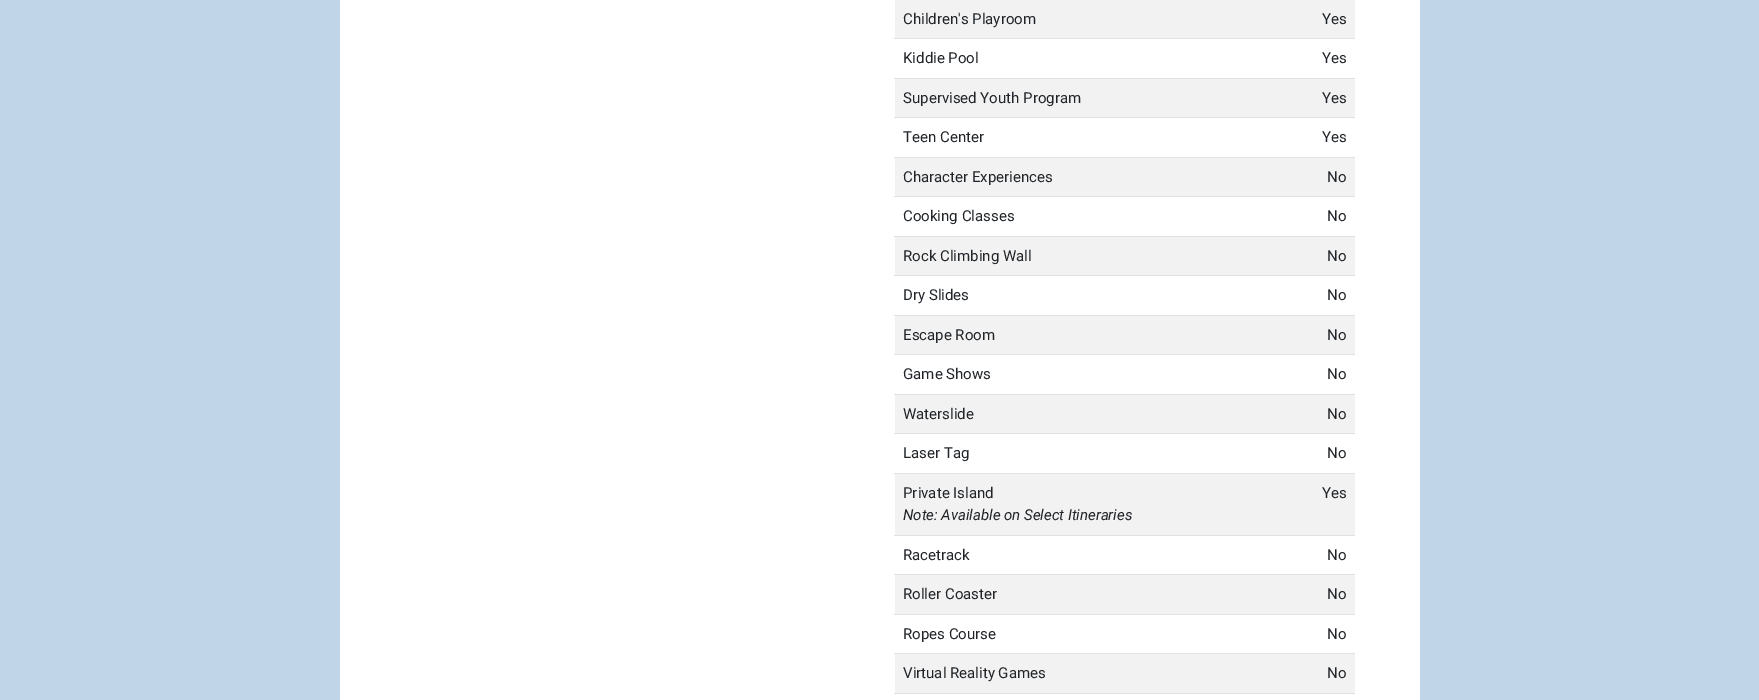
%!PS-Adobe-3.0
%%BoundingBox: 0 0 1759 700
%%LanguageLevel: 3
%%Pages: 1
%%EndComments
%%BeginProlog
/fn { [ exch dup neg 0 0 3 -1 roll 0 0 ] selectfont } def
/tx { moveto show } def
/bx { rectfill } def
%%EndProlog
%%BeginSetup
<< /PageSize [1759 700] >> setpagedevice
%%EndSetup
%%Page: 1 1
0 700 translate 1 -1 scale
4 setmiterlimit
0.757 0.835 0.91 setrgbcolor
0 0 1759 700 bx
1 setgray
340 0 1080 700 bx
0.949 setgray
895 0 460 38 bx
/Roboto-Regular 15 fn
0.129 0.145 0.161 setrgbcolor
(Children's Playroom) 903 24 tx
(Yes) 1322 24 tx
(Kiddie Pool) 903 63 tx
0.871 0.886 0.902 setrgbcolor
894 38 461 1 bx
0.129 0.145 0.161 setrgbcolor
(Yes) 1322 63 tx
0.949 setgray
895 79 460 38 bx
0.129 0.145 0.161 setrgbcolor
(Supervised Youth Program) 903 103 tx
0.871 0.886 0.902 setrgbcolor
894 78 461 1 bx
0.129 0.145 0.161 setrgbcolor
(Yes) 1322 103 tx
(Teen Center) 903 142 tx
0.871 0.886 0.902 setrgbcolor
894 117 461 1 bx
0.129 0.145 0.161 setrgbcolor
(Yes) 1322 142 tx
0.949 setgray
895 158 460 38 bx
0.129 0.145 0.161 setrgbcolor
(Character Experiences) 903 182 tx
0.871 0.886 0.902 setrgbcolor
894 157 461 1 bx
0.129 0.145 0.161 setrgbcolor
(No) 1327 182 tx
(Cooking Classes) 903 221 tx
0.871 0.886 0.902 setrgbcolor
894 196 461 1 bx
0.129 0.145 0.161 setrgbcolor
(No) 1327 221 tx
0.949 setgray
895 237 460 38 bx
0.129 0.145 0.161 setrgbcolor
(Rock Climbing Wall) 903 261 tx
0.871 0.886 0.902 setrgbcolor
894 236 461 1 bx
0.129 0.145 0.161 setrgbcolor
(No) 1327 261 tx
(Dry Slides) 903 300 tx
0.871 0.886 0.902 setrgbcolor
894 275 461 1 bx
0.129 0.145 0.161 setrgbcolor
(No) 1327 300 tx
0.949 setgray
895 316 460 38 bx
0.129 0.145 0.161 setrgbcolor
(Escape Room) 903 340 tx
0.871 0.886 0.902 setrgbcolor
894 315 461 1 bx
0.129 0.145 0.161 setrgbcolor
(No) 1327 340 tx
(Game Shows) 903 379 tx
0.871 0.886 0.902 setrgbcolor
894 354 461 1 bx
0.129 0.145 0.161 setrgbcolor
(No) 1327 379 tx
0.949 setgray
895 395 460 38 bx
0.129 0.145 0.161 setrgbcolor
(Waterslide) 903 419 tx
0.871 0.886 0.902 setrgbcolor
894 394 461 1 bx
0.129 0.145 0.161 setrgbcolor
(No) 1327 419 tx
(Laser Tag) 903 458 tx
0.871 0.886 0.902 setrgbcolor
894 433 461 1 bx
0.129 0.145 0.161 setrgbcolor
(No) 1327 458 tx
0.949 setgray
895 474 460 61 bx
0.129 0.145 0.161 setrgbcolor
(Private Island) 903 498 tx
/Roboto-Italic 15 fn
(Note: Available on Select Itineraries) 903 520 tx
0.871 0.886 0.902 setrgbcolor
894 473 461 1 bx
/Roboto-Regular 15 fn
0.129 0.145 0.161 setrgbcolor
(Yes) 1322 498 tx
(Racetrack) 903 560 tx
0.871 0.886 0.902 setrgbcolor
894 535 461 1 bx
0.129 0.145 0.161 setrgbcolor
(No) 1327 560 tx
0.949 setgray
895 575 460 39 bx
0.129 0.145 0.161 setrgbcolor
(Roller Coaster) 903 599 tx
0.871 0.886 0.902 setrgbcolor
894 574 461 1 bx
0.129 0.145 0.161 setrgbcolor
(No) 1327 599 tx
(Ropes Course) 903 639 tx
0.871 0.886 0.902 setrgbcolor
894 614 461 1 bx
0.129 0.145 0.161 setrgbcolor
(No) 1327 639 tx
0.949 setgray
895 654 460 39 bx
0.129 0.145 0.161 setrgbcolor
(Virtual Reality Games) 903 678 tx
0.871 0.886 0.902 setrgbcolor
894 653 461 1 bx
0.129 0.145 0.161 setrgbcolor
(No) 1327 678 tx
0.871 0.886 0.902 setrgbcolor
894 693 461 1 bx
showpage
%%EOF
